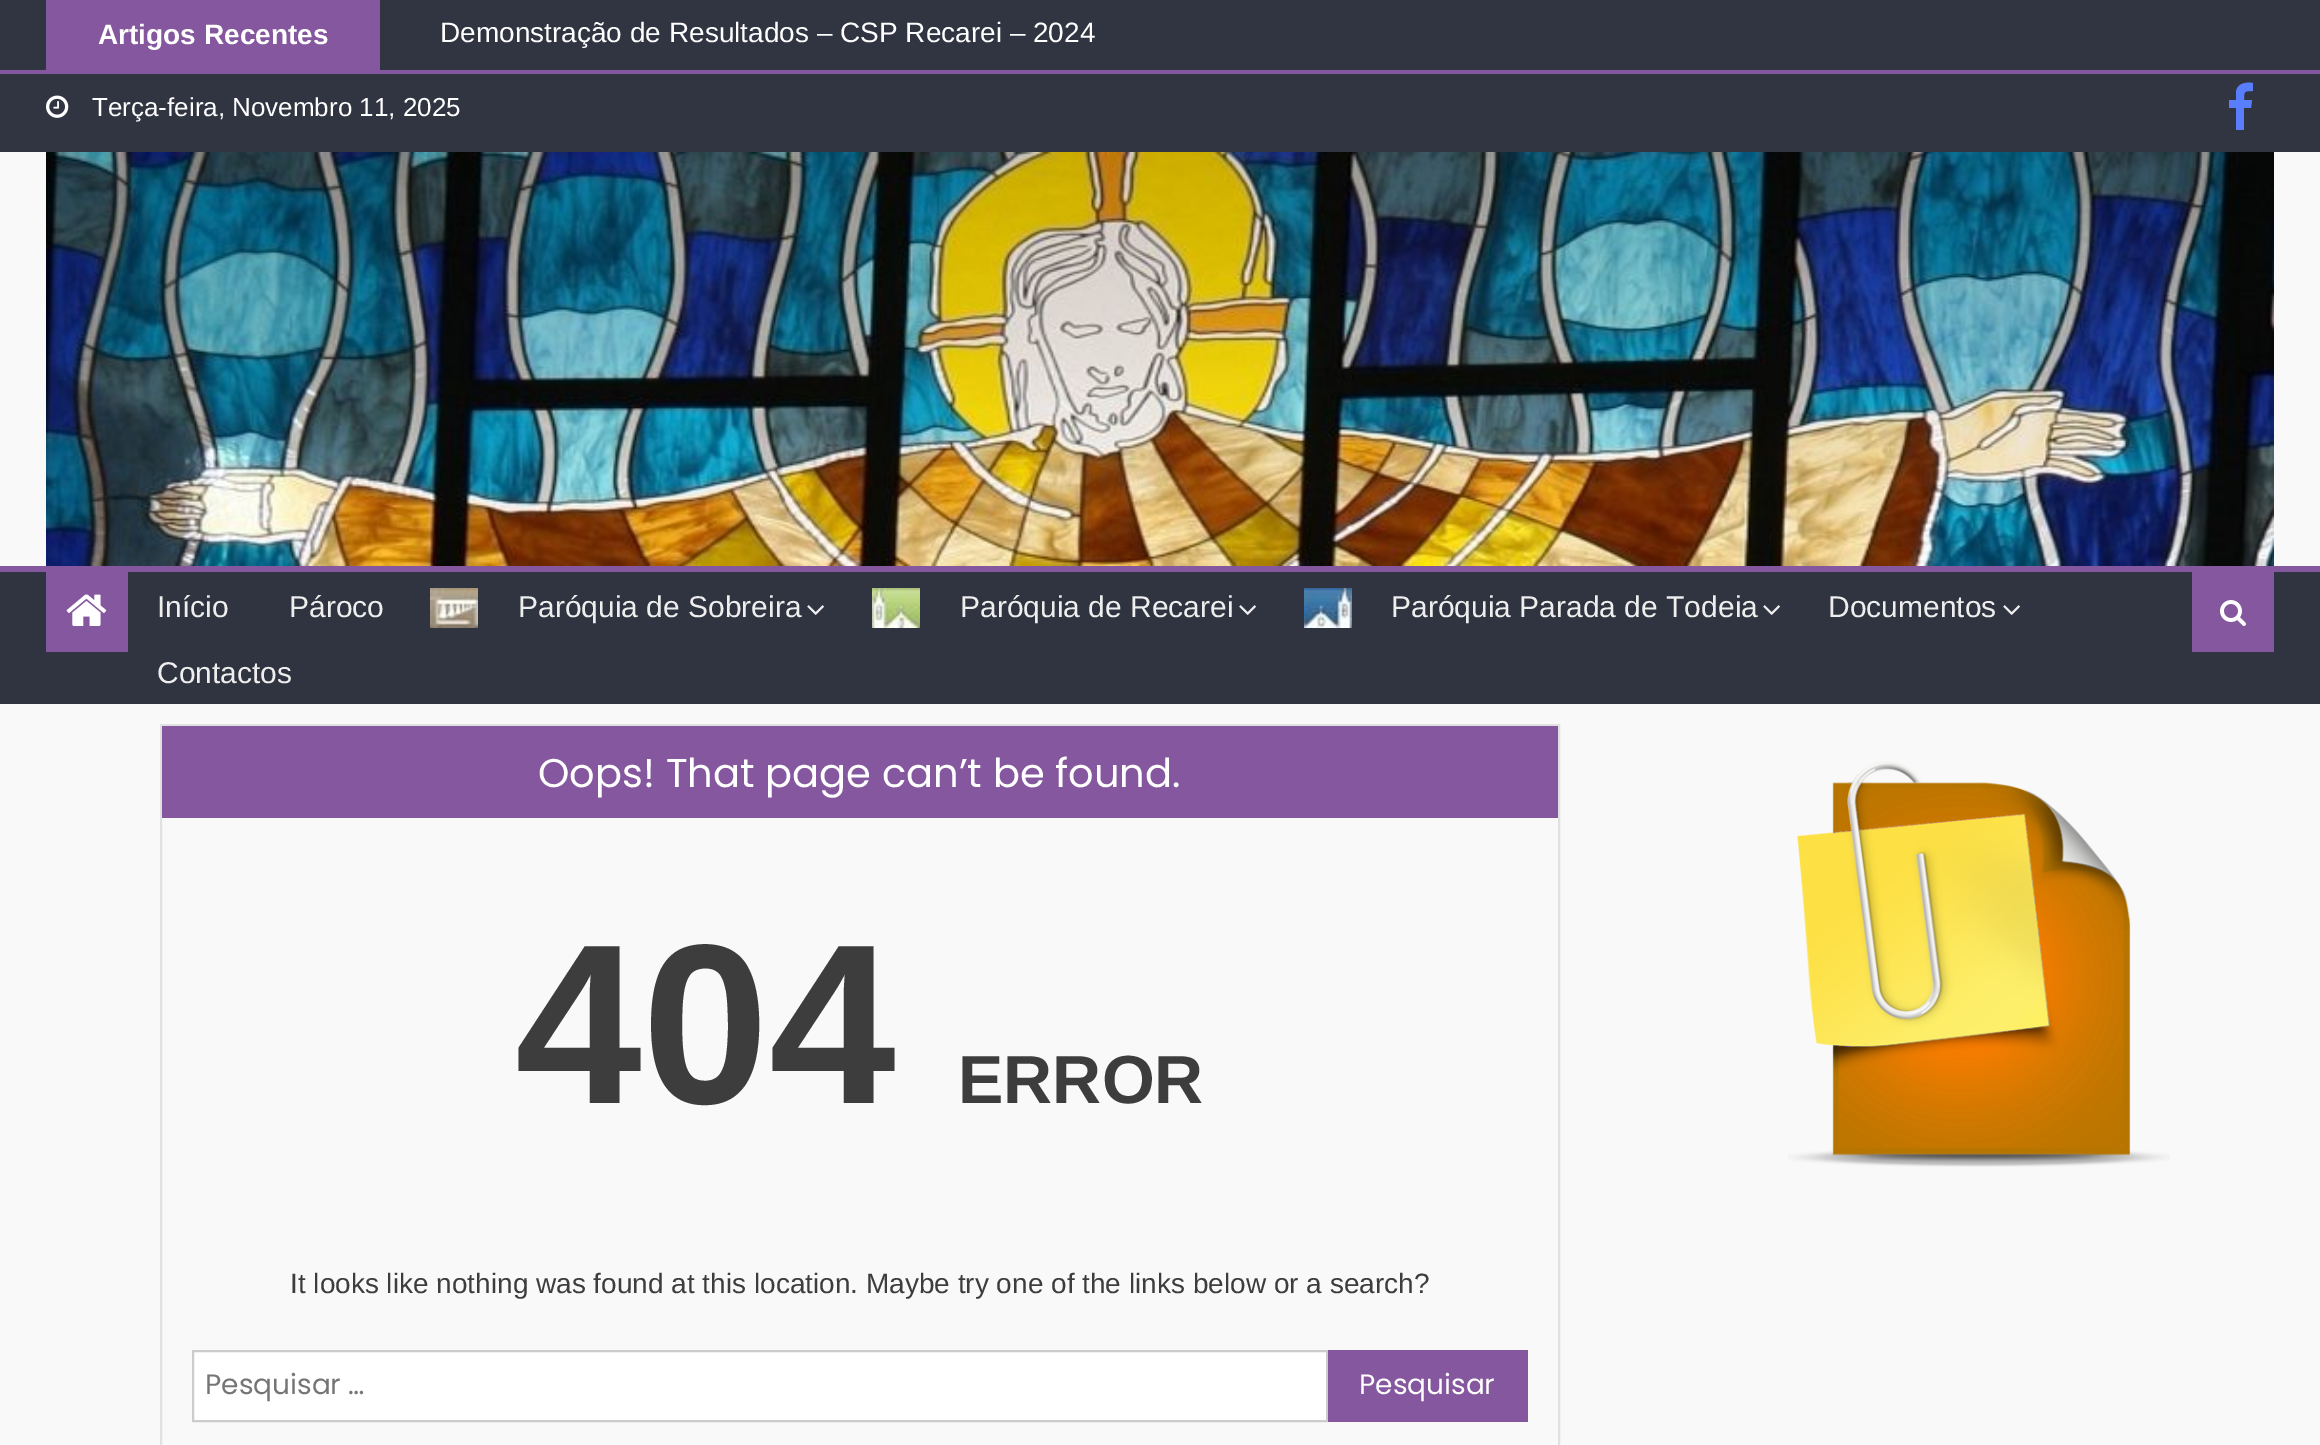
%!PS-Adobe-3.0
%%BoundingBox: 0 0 2320 1445
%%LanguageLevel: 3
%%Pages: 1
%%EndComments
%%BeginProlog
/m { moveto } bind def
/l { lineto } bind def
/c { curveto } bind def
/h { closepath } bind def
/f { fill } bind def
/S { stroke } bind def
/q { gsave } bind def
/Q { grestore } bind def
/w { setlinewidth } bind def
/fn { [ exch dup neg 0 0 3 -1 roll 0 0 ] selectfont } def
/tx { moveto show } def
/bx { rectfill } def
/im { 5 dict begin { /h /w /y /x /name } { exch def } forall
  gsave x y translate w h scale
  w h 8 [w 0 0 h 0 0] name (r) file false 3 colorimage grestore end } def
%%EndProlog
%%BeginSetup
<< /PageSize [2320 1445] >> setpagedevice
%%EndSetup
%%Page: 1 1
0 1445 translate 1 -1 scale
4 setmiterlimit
0.976 setgray
0 0 2320 1445 bx
0.192 0.208 0.255 setrgbcolor
0 0 2320 70 bx
0.522 0.341 0.62 setrgbcolor
46 0 334 70 bx
/LiberationSans-Bold 28 fn
1 setgray
(Artigos Recentes) 98 44 tx
/LiberationSans-Regular 28 fn
(Demonstração de Resultados – CSP Recarei – 2024) 440 42 tx
0.192 0.208 0.255 setrgbcolor
0 74 2320 78 bx
0.522 0.341 0.62 setrgbcolor
0 70 2320 4 bx
(image0.raw) 46 95 23 23 im
/LiberationSans-Regular 26 fn
1 setgray
(Terça-feira, Novembro 11, 2025) 92 116 tx
0.345 0.494 0.984 setrgbcolor
2253 83 m 2253 91 l 2244 91 2244 91 2244 100 c 2252 100 l 2251 108 l 2244 108 l 2244 130 l 2236 130 l 2236 108 l 2229 108 l 2229 100 l 2236 100 l 2236 92 l 2237 83 2246 82 2253 83 c h f
(image1.raw) 46 152 2228 414 im
0.188 0.204 0.251 setrgbcolor
0 572 2320 132 bx
0.522 0.341 0.62 setrgbcolor
0 566 2320 6 bx
46 572 82 80 bx
(image2.raw) 66 594 41 32 im
/LiberationSans-Regular 30 fn
0.933 setgray
(Início) 157 617 tx
(Pároco) 289 617 tx
(image3.raw) 430 588 48 40 im
(Paróquia de Sobreira) 518 617 tx
(image4.raw) 807 605 17 10 im
(image5.raw) 872 588 48 40 im
(Paróquia de Recarei) 960 617 tx
(image4.raw) 1239 605 17 10 im
(image6.raw) 1304 588 48 40 im
(Paróquia Parada de Todeia) 1391 617 tx
(image4.raw) 1763 605 17 10 im
(Documentos) 1828 617 tx
(image4.raw) 2003 605 17 10 im
(Contactos) 157 683 tx
0.522 0.341 0.62 setrgbcolor
2192 572 82 80 bx
(image7.raw) 2220 600 26 26 im
0.882 setgray
2 w
161 725 1398 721 rectstroke
0.522 0.341 0.62 setrgbcolor
162 726 1396 92 bx
/Poppins-Regular 40 fn
1 setgray
(Oops! That page can’t be found.) 538 787 tx
/LiberationSans-Bold 228 fn
0.239 setgray
(404) 515 1103 tx
/LiberationSans-Bold 68 fn
(ERROR) 958 1103 tx
/LiberationSans-Regular 28 fn
(It looks like nothing was found at this location. Maybe try one of the links below or a search?) 290 1293 tx
1 setgray
193 1351 m 1327 1351 l 1327 1421 l 193 1421 l h q f Q
0.8 setgray
S
/Poppins-Regular 28 fn
0.459 setgray
(Pesquisar …) 205 1394 tx
0.522 0.341 0.62 setrgbcolor
1328 1350 200 72 bx
1 setgray
(Pesquisar) 1359 1394 tx
(image8.raw) 1788 761 382 406 im
showpage
%%EOF
